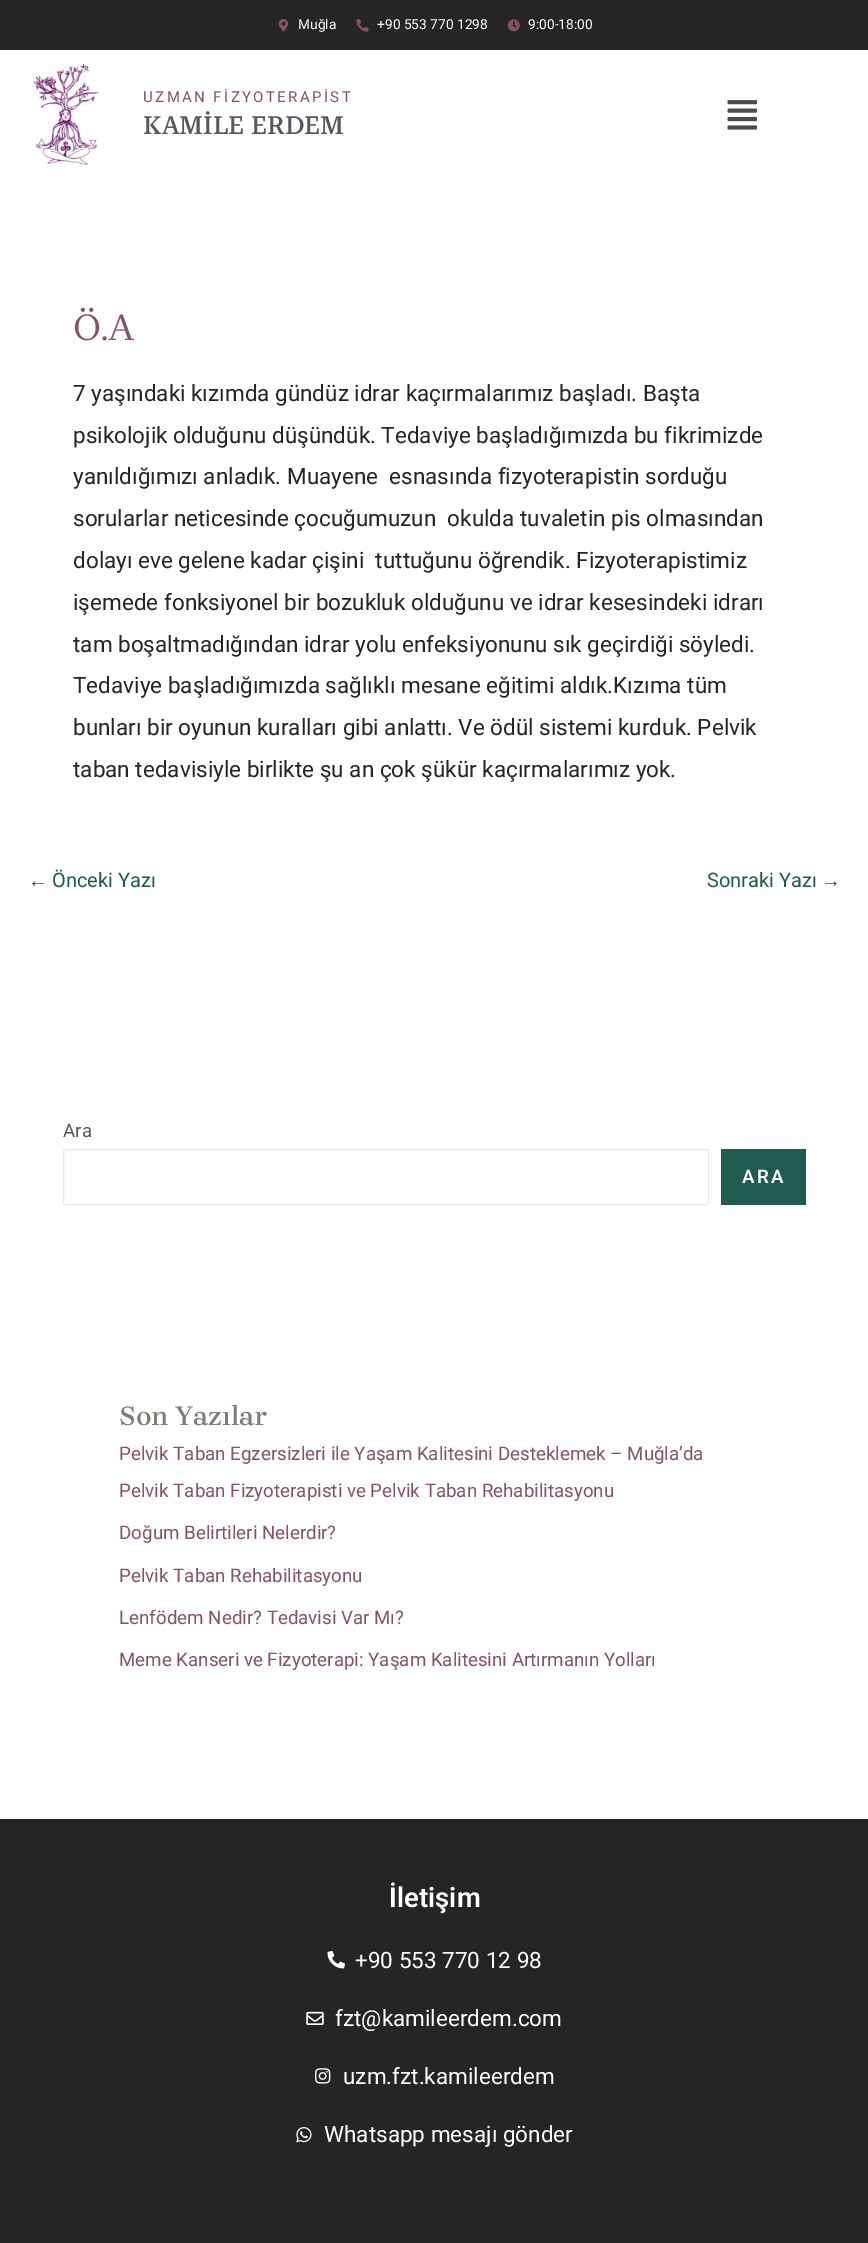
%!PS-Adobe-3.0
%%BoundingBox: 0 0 868 2243
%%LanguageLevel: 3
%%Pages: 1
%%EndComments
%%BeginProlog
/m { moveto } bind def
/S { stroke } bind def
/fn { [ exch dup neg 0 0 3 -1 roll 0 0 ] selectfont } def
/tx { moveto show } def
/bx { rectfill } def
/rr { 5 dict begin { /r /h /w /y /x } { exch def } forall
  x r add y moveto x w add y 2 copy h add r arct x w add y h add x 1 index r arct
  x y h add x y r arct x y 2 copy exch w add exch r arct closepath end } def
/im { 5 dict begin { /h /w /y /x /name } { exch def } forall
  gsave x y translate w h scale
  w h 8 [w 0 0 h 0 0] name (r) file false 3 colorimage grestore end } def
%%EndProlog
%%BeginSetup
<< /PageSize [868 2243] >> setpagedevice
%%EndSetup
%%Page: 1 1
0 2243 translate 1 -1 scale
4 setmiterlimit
1 setgray
0 0 868 2243 bx
0.145 setgray
0 0 868 50 bx
(image0.raw) 278 19 11 13 im
/Roboto-Regular 13.75 fn
1 setgray
(Muğla) 298 29 tx
(image1.raw) 356 19 13 13 im
(+90 553 770 1298) 377 29 tx
(image2.raw) 507 19 13 13 im
(9:00-18:00) 528 29 tx
(image3.raw) 33 64 66 101 im
/Roboto-Regular 15 fn
0.525 0.318 0.412 setrgbcolor
143 102 m 2.4 0 (UZMAN FİZYOTERAPİST) ashow
/RobotoSerif-Medium 25 fn
0.329 0.349 0.373 setrgbcolor
(KAMİLE ERDEM) 143 134 tx
(image4.raw) 727 100 31 30 im
/Brygada1918-Regular 38 fn
0.525 0.318 0.412 setrgbcolor
(Ö.A) 73 340 tx
/Roboto-Regular 22.5 fn
0.145 setgray
(7 yaşındaki kızımda gündüz idrar kaçırmalarımız başladı. Başta) 73 401 tx
(psikolojik olduğunu düşündük. Tedaviye başladığımızda bu fikrimizde) 73 443 tx
(yanıldığımızı anladık. Muayene  esnasında fizyoterapistin sorduğu) 73 484 tx
(sorularlar neticesinde çocuğumuzun  okulda tuvaletin pis olmasından) 73 526 tx
(dolayı eve gelene kadar çişini  tuttuğunu öğrendik. Fizyoterapistimiz) 73 568 tx
(işemede fonksiyonel bir bozukluk olduğunu ve idrar kesesindeki idrarı) 73 610 tx
(tam boşaltmadığından idrar yolu enfeksiyonunu sık geçirdiği söyledi.) 73 652 tx
(Tedaviye başladığımızda sağlıklı mesane eğitimi aldık.Kızıma tüm) 73 693 tx
(bunları bir oyunun kuralları gibi anlattı. Ve ödül sistemi kurduk. Pelvik) 73 735 tx
(taban tedavisiyle birlikte şu an çok şükür kaçırmalarımız yok.) 73 777 tx
/LiberationSans-Regular 20 fn
0.125 0.357 0.31 setrgbcolor
(←) 28 887 tx
/Roboto-Regular 20 fn
(Önceki Yazı) 52 887 tx
(Sonraki Yazı) 707 887 tx
/LiberationSans-Regular 20 fn
(→) 821 887 tx
/Roboto-Regular 18.75 fn
0.329 0.349 0.373 setrgbcolor
(Ara) 63 1137 tx
0.918 setgray
63.5 1149.5 645 55 2 rr S
0.125 0.357 0.31 setrgbcolor
721 1149 85 56 bx
/Roboto-SemiBold 18.75 fn
1 setgray
742 1183 m 2.5 0 (ARA) ashow
/Brygada1918-SemiBold 27.5 fn
0.498 0.486 0.463 setrgbcolor
(Son Yazılar) 119 1425 tx
/Roboto-Regular 18.75 fn
0.525 0.318 0.412 setrgbcolor
(Pelvik Taban Egzersizleri ile Yaşam Kalitesini Desteklemek – Muğla’da) 119 1460 tx
(Pelvik Taban Fizyoterapisti ve Pelvik Taban Rehabilitasyonu) 119 1497 tx
(Doğum Belirtileri Nelerdir?) 119 1539 tx
(Pelvik Taban Rehabilitasyonu) 119 1582 tx
(Lenfödem Nedir? Tedavisi Var Mı?) 119 1624 tx
(Meme Kanseri ve Fizyoterapi: Yaşam Kalitesini Artırmanın Yolları) 119 1666 tx
0.145 setgray
0 1819 868 424 bx
/Roboto-SemiBold 27.5 fn
1 setgray
(İletişim) 389 1907 tx
(image5.raw) 327 1951 18 18 im
/Roboto-Regular 22.5 fn
(+90 553 770 12 98) 355 1968 tx
(image6.raw) 306 2011 18 14 im
(fzt@kamileerdem.com) 335 2026 tx
(image7.raw) 315 2068 16 16 im
(uzm.fzt.kamileerdem) 343 2084 tx
(image8.raw) 296 2127 16 16 im
(Whatsapp mesajı gönder) 324 2142 tx
showpage
%%EOF
